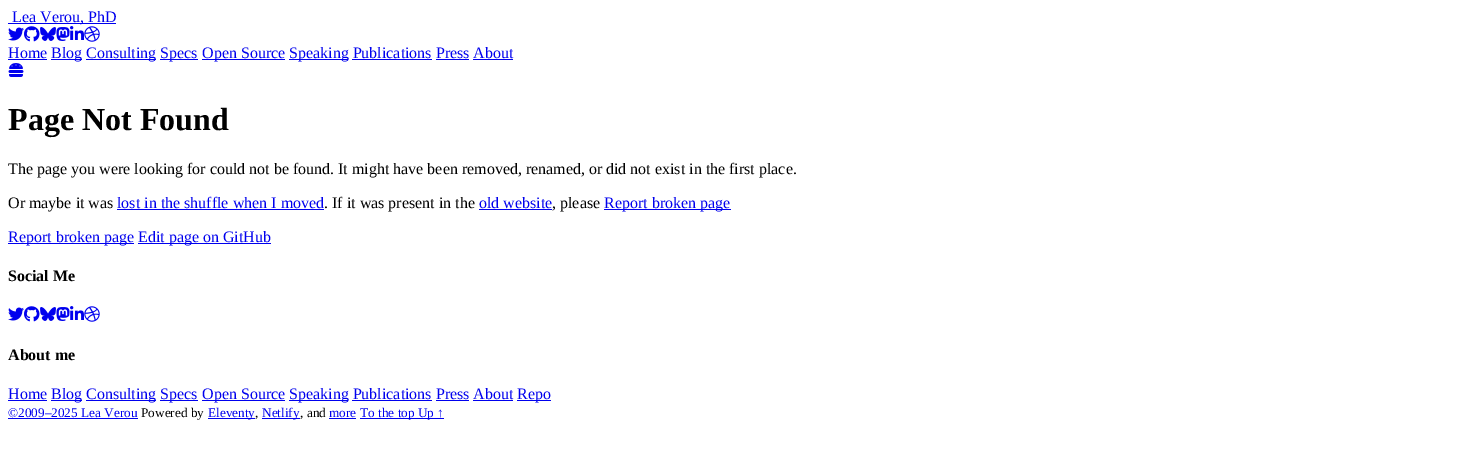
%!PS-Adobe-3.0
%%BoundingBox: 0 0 1466 476
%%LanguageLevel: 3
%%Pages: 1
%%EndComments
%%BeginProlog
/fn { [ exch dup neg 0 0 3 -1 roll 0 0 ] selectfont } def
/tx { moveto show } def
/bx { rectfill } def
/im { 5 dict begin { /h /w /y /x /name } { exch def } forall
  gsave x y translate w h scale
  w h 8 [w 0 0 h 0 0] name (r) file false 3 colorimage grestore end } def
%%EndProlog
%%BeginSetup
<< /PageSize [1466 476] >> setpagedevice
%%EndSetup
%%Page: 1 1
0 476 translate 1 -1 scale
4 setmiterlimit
1 setgray
0 0 1466 476 bx
0 0 0.933 setrgbcolor
8 23 108 1 bx
/LiberationSerif-Regular 16 fn
(Lea Verou, PhD) 12 22 tx
(image0.raw) 8 27 16 14 im
(image1.raw) 24 26 16 16 im
(image2.raw) 40 27 16 14 im
(image3.raw) 56 27 14 14 im
(image4.raw) 70 26 14 14 im
(image5.raw) 84 26 16 16 im
(Home) 8 58 tx
8 59 39 1 bx
51 59 31 1 bx
(Blog) 51 58 tx
86 59 70 1 bx
(Consulting) 86 58 tx
160 59 38 1 bx
(Specs) 160 58 tx
202 59 83 1 bx
(Open Source) 202 58 tx
289 59 59 1 bx
(Speaking Publications Press About) 289 58 tx
352 59 80 1 bx
436 59 33 1 bx
473 59 40 1 bx
(image6.raw) 8 63 16 14 im
/LiberationSerif-Bold 32 fn
0 setgray
(Page Not Found) 8 130 tx
/LiberationSerif-Regular 16 fn
(The page you were looking for could not be found. It might have been removed, renamed, or did not exist in the first place.) 8 174 tx
(Or maybe it was) 8 208 tx
0 0 0.933 setrgbcolor
(lost in the shuffle when I moved) 117 208 tx
117 209 207 1 bx
0 setgray
(. If it was present in the) 324 208 tx
0 0 0.933 setrgbcolor
(old website) 479 208 tx
479 209 73 1 bx
0 setgray
(, please) 552 208 tx
0 0 0.933 setrgbcolor
604 209 127 1 bx
(Report broken page) 604 208 tx
8 243 126 1 bx
(Report broken page) 8 242 tx
138 243 133 1 bx
(Edit page on GitHub) 138 242 tx
/LiberationSerif-Bold 16 fn
0 setgray
(Social Me) 8 281 tx
(image0.raw) 8 307 16 14 im
(image1.raw) 24 306 16 16 im
(image2.raw) 40 307 16 14 im
(image3.raw) 56 307 14 14 im
(image4.raw) 70 306 14 14 im
(image5.raw) 84 306 16 16 im
(About me) 8 360 tx
/LiberationSerif-Regular 16 fn
0 0 0.933 setrgbcolor
(Home) 8 399 tx
8 400 39 1 bx
51 400 31 1 bx
(Blog) 51 399 tx
86 400 70 1 bx
(Consulting) 86 399 tx
160 400 38 1 bx
(Specs) 160 399 tx
202 400 83 1 bx
(Open Source) 202 399 tx
289 400 59 1 bx
(Speaking Publications Press About) 289 399 tx
517 400 34 1 bx
(Repo) 517 399 tx
352 400 80 1 bx
436 400 33 1 bx
473 400 40 1 bx
/LiberationSerif-Regular 13.25 fn
(©2009–2025 Lea Verou) 8 417 tx
8 418 130 1 bx
0 setgray
(Powered by) 141 417 tx
0 0 0.933 setrgbcolor
208 418 47 1 bx
(Eleventy) 208 417 tx
0 setgray
(,) 255 417 tx
0 0 0.933 setrgbcolor
262 418 38 1 bx
(Netlify) 262 417 tx
0 setgray
(, and) 300 417 tx
0 0 0.933 setrgbcolor
(more) 329 417 tx
329 418 27 1 bx
360 418 84 1 bx
(To the top Up ↑) 360 417 tx
showpage
%%EOF
